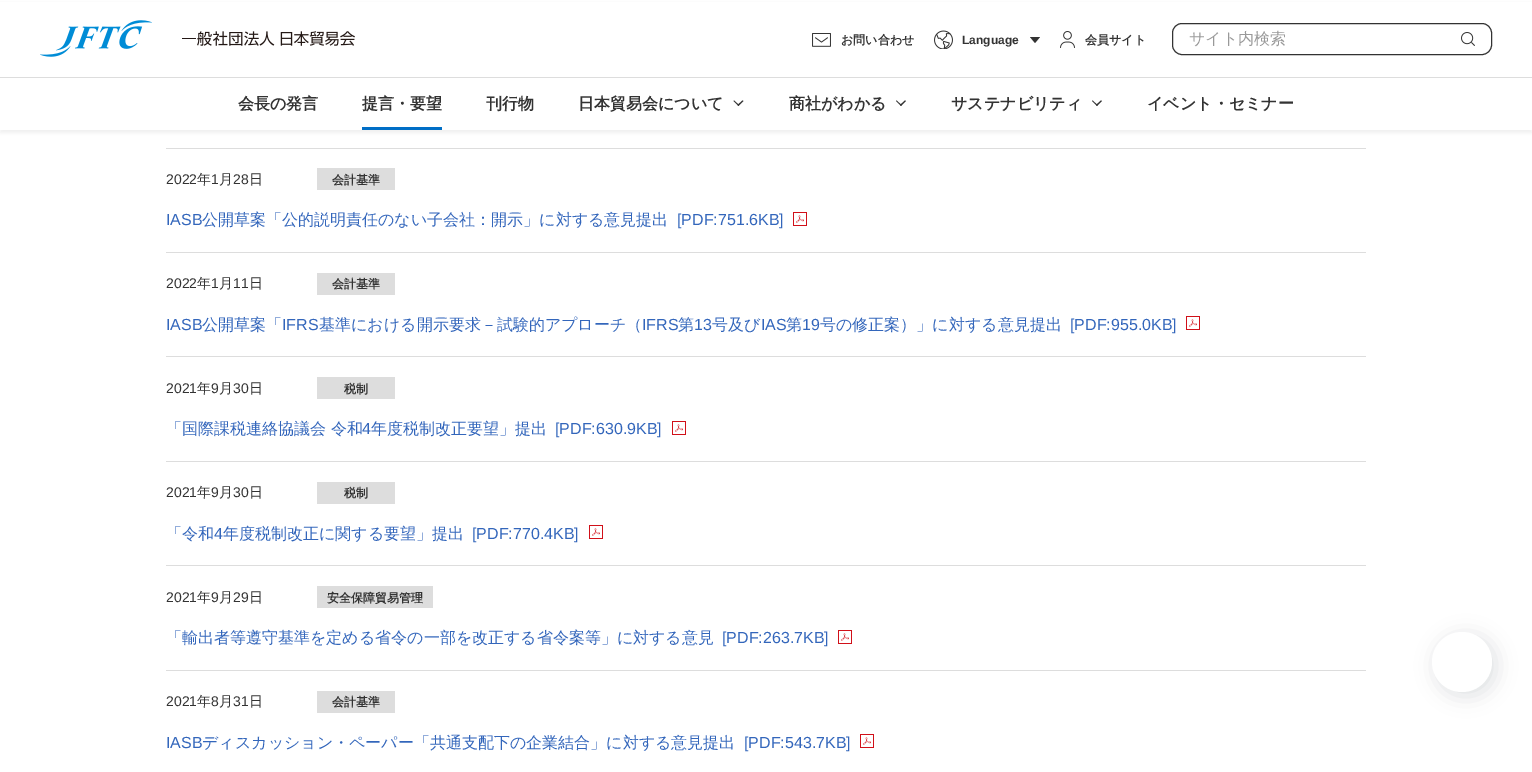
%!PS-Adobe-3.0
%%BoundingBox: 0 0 1532 772
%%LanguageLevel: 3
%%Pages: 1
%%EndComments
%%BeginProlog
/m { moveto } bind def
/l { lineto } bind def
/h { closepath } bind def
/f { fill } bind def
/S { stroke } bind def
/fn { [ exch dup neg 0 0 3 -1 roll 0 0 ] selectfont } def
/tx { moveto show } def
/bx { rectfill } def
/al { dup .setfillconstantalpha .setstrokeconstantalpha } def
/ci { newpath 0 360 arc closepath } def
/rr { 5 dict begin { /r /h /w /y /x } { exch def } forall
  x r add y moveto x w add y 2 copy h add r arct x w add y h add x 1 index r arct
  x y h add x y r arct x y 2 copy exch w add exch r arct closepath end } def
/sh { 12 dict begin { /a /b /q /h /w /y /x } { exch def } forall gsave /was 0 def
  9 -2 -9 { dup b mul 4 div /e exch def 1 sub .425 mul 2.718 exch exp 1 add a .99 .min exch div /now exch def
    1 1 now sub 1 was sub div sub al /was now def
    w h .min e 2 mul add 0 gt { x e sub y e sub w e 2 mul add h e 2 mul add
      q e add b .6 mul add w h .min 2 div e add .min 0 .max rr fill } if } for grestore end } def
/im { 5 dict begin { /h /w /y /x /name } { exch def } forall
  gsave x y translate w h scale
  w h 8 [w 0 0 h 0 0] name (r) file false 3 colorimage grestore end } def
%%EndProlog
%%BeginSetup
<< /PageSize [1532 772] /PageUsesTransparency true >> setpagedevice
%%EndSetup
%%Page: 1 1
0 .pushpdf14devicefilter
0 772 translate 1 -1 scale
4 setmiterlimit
1 setgray
0 0 1532 772 bx
0 setgray
0 3 1532 130 0 1.5 0.05 sh
1 setgray
0 2 1532 128 bx
(image0.raw) 40 20 112 37 im
(image1.raw) 182 31 173 15 im
(image2.raw) 812 33 19 14 im
/WenQuanYiZenHei-Bold 12 fn
0.2 setgray
(お問い合わせ) 841 44 tx
(image3.raw) 934 30 19 19 im
/LiberationSans-Bold 12 fn
(Language) 962 44 tx
1030 37 m 1040 37 l 1035 43 l h f
(image4.raw) 1060 31 15 17 im
/WenQuanYiZenHei-Bold 12 fn
(会員サイト) 1085 44 tx
1172.5 23.5 319 31 9.5 rr S
/WenQuanYiZenHei-Medium 16 fn
0.6 setgray
(サイト内検索) 1189 44 tx
(image5.raw) 1461 32 14 14 im
0.867 setgray
0 77 1532 1 bx
/WenQuanYiZenHei-Bold 16 fn
0.2 setgray
(会長の発言) 238 109 tx
(提言・要望) 362 109 tx
0 0.431 0.776 setrgbcolor
362 127 80 3 bx
0.2 setgray
(刊行物) 486 109 tx
(日本貿易会について) 578 109 tx
743.5 101 m 738.5 106 l 737.5 105 l 742.5 100.5 l h f
739 105 m 738.5 106 l 733.5 101 l 734 100.5 l h f
(商社がわかる) 789 109 tx
906 101 m 901 106 l 900 105 l 905 100.5 l h f
901.5 105 m 901 106 l 896 101 l 896.5 100.5 l h f
(サステナビリティ) 951 109 tx
1102 101 m 1097 106 l 1096 105 l 1101 100.5 l h f
1097.5 105 m 1097 106 l 1092 101 l 1092.5 100.5 l h f
(イベント・セミナー) 1147 109 tx
0.867 setgray
166 148 1200 1 bx
166 252 1200 1 bx
/LiberationSans-Regular 14 fn
0.2 setgray
(2022) 166 184 tx
/WenQuanYiZenHei-Medium 14 fn
(年) 197 184 tx
/LiberationSans-Regular 14 fn
(1) 211 184 tx
/WenQuanYiZenHei-Medium 14 fn
(月) 219 184 tx
/LiberationSans-Regular 14 fn
(28) 233 184 tx
/WenQuanYiZenHei-Medium 14 fn
(日) 249 184 tx
0.867 setgray
317 168 78 22 bx
/WenQuanYiZenHei-Bold 12 fn
0.2 setgray
(会計基準) 332 184 tx
/LiberationSans-Regular 16 fn
0.2 0.4 0.733 setrgbcolor
(IASB) 166 225 tx
/WenQuanYiZenHei-Medium 16 fn
(公開草案「公的説明責任のない子会社：開示」に対する意見提出) 202 225 tx
/LiberationSans-Regular 16 fn
([PDF:751.6KB]) 677 225 tx
(image6.raw) 793 212 14 14 im
0.867 setgray
166 356 1200 1 bx
/LiberationSans-Regular 14 fn
0.2 setgray
(2022) 166 288 tx
/WenQuanYiZenHei-Medium 14 fn
(年) 197 288 tx
/LiberationSans-Regular 14 fn
(1) 211 288 tx
/WenQuanYiZenHei-Medium 14 fn
(月) 219 288 tx
/LiberationSans-Regular 14 fn
(11) 233 288 tx
/WenQuanYiZenHei-Medium 14 fn
(日) 249 288 tx
0.867 setgray
317 273 78 22 bx
/WenQuanYiZenHei-Bold 12 fn
0.2 setgray
(会計基準) 332 288 tx
/LiberationSans-Regular 16 fn
0.2 0.4 0.733 setrgbcolor
(IASB) 166 330 tx
/WenQuanYiZenHei-Medium 16 fn
(公開草案「) 202 330 tx
/LiberationSans-Regular 16 fn
(IFRS) 282 330 tx
/WenQuanYiZenHei-Medium 16 fn
(基準における開示要求－試験的アプローチ（) 319 330 tx
/LiberationSans-Regular 16 fn
(IFRS) 642 330 tx
/WenQuanYiZenHei-Medium 16 fn
(第) 678 330 tx
/LiberationSans-Regular 16 fn
(13) 694 330 tx
/WenQuanYiZenHei-Medium 16 fn
(号及び) 712 330 tx
/LiberationSans-Regular 16 fn
(IAS) 761 330 tx
/WenQuanYiZenHei-Medium 16 fn
(第) 786 330 tx
/LiberationSans-Regular 16 fn
(19) 802 330 tx
/WenQuanYiZenHei-Medium 16 fn
(号の修正案）」に対する意見提出) 820 330 tx
/LiberationSans-Regular 16 fn
([PDF:955.0KB]) 1070 330 tx
(image6.raw) 1186 316 14 14 im
0.867 setgray
166 461 1200 1 bx
/LiberationSans-Regular 14 fn
0.2 setgray
(2021) 166 393 tx
/WenQuanYiZenHei-Medium 14 fn
(年) 197 393 tx
/LiberationSans-Regular 14 fn
(9) 211 393 tx
/WenQuanYiZenHei-Medium 14 fn
(月) 219 393 tx
/LiberationSans-Regular 14 fn
(30) 233 393 tx
/WenQuanYiZenHei-Medium 14 fn
(日) 249 393 tx
0.867 setgray
317 377 78 22 bx
/WenQuanYiZenHei-Bold 12 fn
0.2 setgray
(税制) 344 393 tx
/WenQuanYiZenHei-Medium 16 fn
0.2 0.4 0.733 setrgbcolor
(「国際課税連絡協議会 令和) 166 434 tx
/LiberationSans-Regular 16 fn
(4) 362 434 tx
/WenQuanYiZenHei-Medium 16 fn
(年度税制改正要望」提出) 371 434 tx
/LiberationSans-Regular 16 fn
([PDF:630.9KB]) 555 434 tx
(image6.raw) 672 421 14 14 im
0.867 setgray
166 565 1200 1 bx
/LiberationSans-Regular 14 fn
0.2 setgray
(2021) 166 497 tx
/WenQuanYiZenHei-Medium 14 fn
(年) 197 497 tx
/LiberationSans-Regular 14 fn
(9) 211 497 tx
/WenQuanYiZenHei-Medium 14 fn
(月) 219 497 tx
/LiberationSans-Regular 14 fn
(30) 233 497 tx
/WenQuanYiZenHei-Medium 14 fn
(日) 249 497 tx
0.867 setgray
317 482 78 22 bx
/WenQuanYiZenHei-Bold 12 fn
0.2 setgray
(税制) 344 497 tx
/WenQuanYiZenHei-Medium 16 fn
0.2 0.4 0.733 setrgbcolor
(「令和) 166 539 tx
/LiberationSans-Regular 16 fn
(4) 214 539 tx
/WenQuanYiZenHei-Medium 16 fn
(年度税制改正に関する要望」提出) 223 539 tx
/LiberationSans-Regular 16 fn
([PDF:770.4KB]) 472 539 tx
(image6.raw) 589 525 14 14 im
0.867 setgray
166 670 1200 1 bx
/LiberationSans-Regular 14 fn
0.2 setgray
(2021) 166 602 tx
/WenQuanYiZenHei-Medium 14 fn
(年) 197 602 tx
/LiberationSans-Regular 14 fn
(9) 211 602 tx
/WenQuanYiZenHei-Medium 14 fn
(月) 219 602 tx
/LiberationSans-Regular 14 fn
(29) 233 602 tx
/WenQuanYiZenHei-Medium 14 fn
(日) 249 602 tx
0.867 setgray
317 586 116 22 bx
/WenQuanYiZenHei-Bold 12 fn
0.2 setgray
(安全保障貿易管理) 327 602 tx
/WenQuanYiZenHei-Medium 16 fn
0.2 0.4 0.733 setrgbcolor
(「輸出者等遵守基準を定める省令の一部を改正する省令案等」に対する意見) 166 643 tx
/LiberationSans-Regular 16 fn
([PDF:263.7KB]) 722 643 tx
(image6.raw) 838 630 14 14 im
/LiberationSans-Regular 14 fn
0.2 setgray
(2021) 166 706 tx
/WenQuanYiZenHei-Medium 14 fn
(年) 197 706 tx
/LiberationSans-Regular 14 fn
(8) 211 706 tx
/WenQuanYiZenHei-Medium 14 fn
(月) 219 706 tx
/LiberationSans-Regular 14 fn
(31) 233 706 tx
/WenQuanYiZenHei-Medium 14 fn
(日) 249 706 tx
0.867 setgray
317 691 78 22 bx
/WenQuanYiZenHei-Bold 12 fn
0.2 setgray
(会計基準) 332 706 tx
/LiberationSans-Regular 16 fn
0.2 0.4 0.733 setrgbcolor
(IASB) 166 748 tx
/WenQuanYiZenHei-Medium 16 fn
(ディスカッション・ペーパー「共通支配下の企業結合」に対する意見提出) 202 748 tx
/LiberationSans-Regular 16 fn
([PDF:543.7KB]) 744 748 tx
(image6.raw) 860 734 14 14 im
0 0.059 0.118 setrgbcolor
1436 636 60 60 30 10 0.12 sh
1 setgray
1462 662 30 ci f
.poppdf14devicefilter showpage
%%EOF
